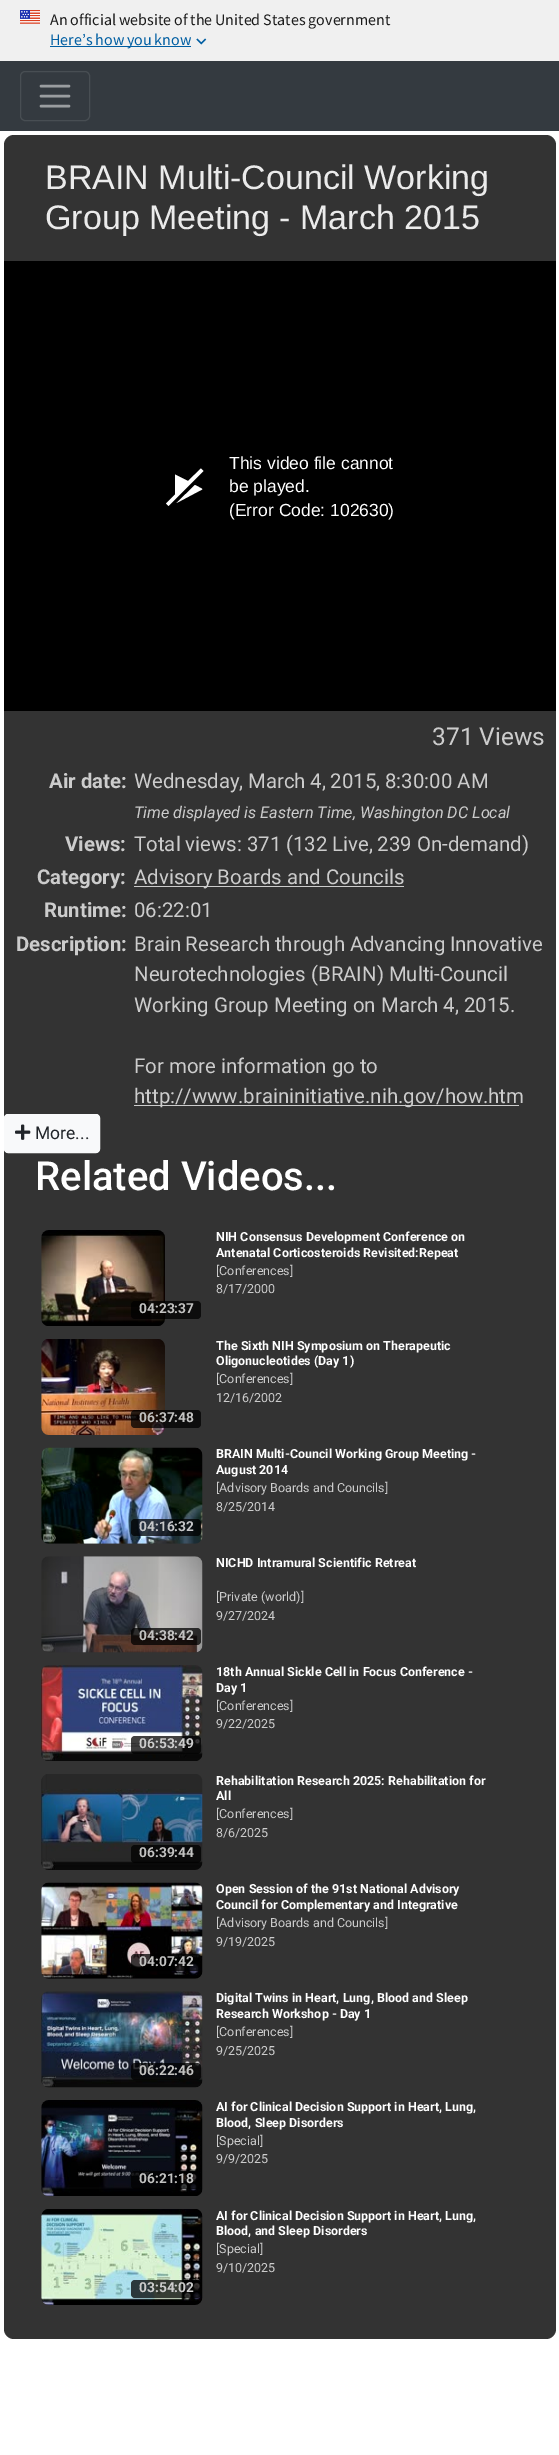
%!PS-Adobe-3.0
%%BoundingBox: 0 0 559 2455
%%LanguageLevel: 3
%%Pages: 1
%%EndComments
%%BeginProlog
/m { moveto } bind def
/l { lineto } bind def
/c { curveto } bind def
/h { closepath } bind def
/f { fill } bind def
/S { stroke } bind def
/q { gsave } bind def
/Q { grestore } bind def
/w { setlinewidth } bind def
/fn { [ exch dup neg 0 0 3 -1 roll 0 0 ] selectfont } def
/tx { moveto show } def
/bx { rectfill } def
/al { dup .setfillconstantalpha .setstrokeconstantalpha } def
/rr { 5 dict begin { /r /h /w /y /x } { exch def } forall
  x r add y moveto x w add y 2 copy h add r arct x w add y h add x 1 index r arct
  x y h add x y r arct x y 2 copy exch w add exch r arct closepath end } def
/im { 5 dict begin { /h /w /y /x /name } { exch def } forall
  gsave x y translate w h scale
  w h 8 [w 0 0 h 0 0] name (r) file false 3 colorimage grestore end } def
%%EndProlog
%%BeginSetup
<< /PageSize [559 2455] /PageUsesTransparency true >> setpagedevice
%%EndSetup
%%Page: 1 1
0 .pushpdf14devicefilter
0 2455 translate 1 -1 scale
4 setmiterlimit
1 setgray
0 0 559 2455 bx
0.941 setgray
0 0 559 61 bx
(image0.raw) 20 10 20 14 im
/SourceSansPro-Regular 16 fn
0.106 setgray
50 25 m -0.25 0 32 (An official website of the United States government) widthshow
0 0.369 0.635 setrgbcolor
50 46 141 1 bx
50 45 m -0.5 0 32 (Here’s how you know) widthshow
(image1.raw) 196 38 11 7 im
0.204 0.227 0.251 setrgbcolor
0 61 559 70 bx
0.282 0.306 0.325 setrgbcolor
20.5 71.5 69 49 4.5 rr S
0.604 0.616 0.627 setrgbcolor
2.5 w
1 setlinecap
41 86 m 69 86 l 41 96 m 69 96 l 41 106 m 69 106 l S
0.2 setgray
4 135 552 2204 10 rr f
/LiberationSans-Regular 34 fn
0.922 setgray
(BRAIN Multi-Council Working) 45 189 tx
(Group Meeting - March 2015) 45 229 tx
0 setgray
4 261 552 450 bx
1 setgray
202 489.5 m 176.5 503 l 195 485 l 201.5 488.5 203 489 202 489.5 c h 201 468.5 m 188 481 l 175 474.5 l 175 494.5 l 166 503.5 l 168.5 506 l 203.5 471 l h f
/LiberationSans-Regular 17.5 fn
(This video file cannot) 229 469 tx
(be played.) 229 492 tx
(\(Error Code: 102630\)) 229 516 tx
/Roboto-Regular 24.5 fn
0.8 setgray
(371 Views) 432 745 tx
/Roboto-Bold 20.4 fn
(Air date:) 49 788 tx
/Roboto-Regular 20.4 fn
134 788 m -0.5 0 32 (Wednesday, March 4, 2015,) widthshow
(8:30:00 AM) 385 788 tx
/Roboto-Italic 16.25 fn
(Time displayed is Eastern Time, Washington DC Local) 134 818 tx
/Roboto-Bold 20.4 fn
(Views:) 65 851 tx
/Roboto-Regular 20.4 fn
134 851 m -0.25 0 32 (Total views: 371 \(132 Live, 239 On-demand\)) widthshow
/Roboto-Bold 20.4 fn
(Category:) 37 884 tx
134 886 270 1 bx
/Roboto-Regular 20.4 fn
(Advisory Boards and Councils) 134 884 tx
/Roboto-Bold 20.4 fn
(Runtime:) 44 917 tx
/Roboto-Regular 20.4 fn
(06:22:01) 134 917 tx
/Roboto-Bold 20.4 fn
(Description:) 16 951 tx
/Roboto-Regular 20.4 fn
134 951 m -0.5 0 32 (Brain Research through Advancing Innovative) widthshow
(Neurotechnologies \(BRAIN\) Multi-Council) 134 981 tx
(Working Group Meeting on March 4, 2015.) 134 1012 tx
(For more information go to) 134 1073 tx
134 1105 385 1 bx
(http://www.braininitiative.nih.gov/how.htm) 134 1103 tx
0.973 0.976 0.98 setrgbcolor
4.5 1114.5 95 38 3.5 rr q f Q
1 w
0 setlinecap
S
(image2.raw) 15 1124 16 16 im
/Roboto-Regular 17.5 fn
0.129 0.145 0.161 setrgbcolor
(More...) 35 1139 tx
/Roboto-Medium 40 fn
1 setgray
(Related Videos...) 35 1190 tx
/Roboto-Bold 12.5 fn
(NIH Consensus Development Conference on) 216 1241 tx
(Antenatal Corticosteroids Revisited:Repeat) 216 1257 tx
/Roboto-Regular 12.5 fn
0.8 setgray
([Conferences]) 216 1275 tx
(8/17/2000) 216 1293 tx
(image3.raw) 41 1230 124 96 im
0.75 al
0 setgray
131 1301 70 18 4 rr f
/Roboto-Bold 13.75 fn
1 al
0.761 0.761 0.757 setrgbcolor
(04:23:37) 139 1313 tx
/Roboto-Bold 12.5 fn
1 setgray
(The Sixth NIH Symposium on Therapeutic) 216 1350 tx
(Oligonucleotides \(Day 1\)) 216 1365 tx
/Roboto-Regular 12.5 fn
0.8 setgray
([Conferences]) 216 1383 tx
(12/16/2002) 216 1402 tx
(image4.raw) 41 1339 124 96 im
0.75 al
0 setgray
131 1410 70 18 4 rr f
/Roboto-Bold 13.75 fn
1 al
0.761 0.761 0.757 setrgbcolor
(06:37:48) 139 1422 tx
/Roboto-Bold 12.5 fn
1 setgray
(BRAIN Multi-Council Working Group Meeting -) 216 1458 tx
(August 2014) 216 1474 tx
/Roboto-Regular 12.5 fn
0.8 setgray
([Advisory Boards and Councils]) 216 1492 tx
(8/25/2014) 216 1511 tx
(image5.raw) 41 1447 162 97 im
0.75 al
0 setgray
131 1519 70 17 4 rr f
/Roboto-Bold 13.75 fn
1 al
0.776 0.78 0.788 setrgbcolor
(04:16:32) 139 1531 tx
/Roboto-Bold 12.5 fn
1 setgray
(NICHD Intramural Scientific Retreat) 216 1567 tx
/Roboto-Regular 12.5 fn
0.8 setgray
([Private \(world\)]) 216 1601 tx
(9/27/2024) 216 1620 tx
(image6.raw) 41 1556 162 97 im
0.75 al
0 setgray
131 1628 70 17 4 rr f
/Roboto-Bold 13.75 fn
1 al
0.761 0.761 0.757 setrgbcolor
(04:38:42) 139 1640 tx
/Roboto-Bold 12.5 fn
1 setgray
(18th Annual Sickle Cell in Focus Conference -) 216 1676 tx
(Day 1) 216 1692 tx
/Roboto-Regular 12.5 fn
0.8 setgray
([Conferences]) 216 1710 tx
(9/22/2025) 216 1728 tx
(image7.raw) 41 1665 162 96 im
0.75 al
0 setgray
131 1736 70 18 4 rr f
/Roboto-Bold 13.75 fn
1 al
0.8 setgray
(06:53:49) 139 1748 tx
/Roboto-Bold 12.5 fn
1 setgray
(Rehabilitation Research 2025: Rehabilitation for) 216 1785 tx
(All) 216 1800 tx
/Roboto-Regular 12.5 fn
0.8 setgray
([Conferences]) 216 1818 tx
(8/6/2025) 216 1837 tx
(image8.raw) 41 1774 162 96 im
0.75 al
0 setgray
131 1845 70 18 4 rr f
/Roboto-Bold 13.75 fn
1 al
0.761 0.761 0.757 setrgbcolor
(06:39:44) 139 1857 tx
/Roboto-Bold 12.5 fn
1 setgray
(Open Session of the 91st National Advisory) 216 1893 tx
(Council for Complementary and Integrative) 216 1909 tx
/Roboto-Regular 12.5 fn
0.8 setgray
([Advisory Boards and Councils]) 216 1927 tx
(9/19/2025) 216 1946 tx
(image9.raw) 41 1882 162 97 im
0.75 al
0 setgray
131 1954 70 17 4 rr f
/Roboto-Bold 13.75 fn
1 al
0.761 0.761 0.757 setrgbcolor
(04:07:42) 139 1966 tx
/Roboto-Bold 12.5 fn
1 setgray
(Digital Twins in Heart, Lung, Blood and Sleep) 216 2002 tx
(Research Workshop - Day 1) 216 2018 tx
/Roboto-Regular 12.5 fn
0.8 setgray
([Conferences]) 216 2036 tx
(9/25/2025) 216 2055 tx
(image10.raw) 41 1991 162 97 im
0.75 al
0 setgray
131 2063 70 17 4 rr f
/Roboto-Bold 13.75 fn
1 al
0.761 0.761 0.757 setrgbcolor
(06:22:46) 139 2075 tx
/Roboto-Bold 12.5 fn
1 setgray
(AI for Clinical Decision Support in Heart, Lung,) 216 2111 tx
(Blood, Sleep Disorders) 216 2127 tx
/Roboto-Regular 12.5 fn
0.8 setgray
([Special]) 216 2145 tx
(9/9/2025) 216 2163 tx
(image11.raw) 41 2100 162 96 im
0.75 al
0 setgray
131 2171 70 18 4 rr f
/Roboto-Bold 13.75 fn
1 al
0.761 0.761 0.757 setrgbcolor
(06:21:18) 139 2183 tx
/Roboto-Bold 12.5 fn
1 setgray
(AI for Clinical Decision Support in Heart, Lung,) 216 2220 tx
(Blood, and Sleep Disorders) 216 2235 tx
/Roboto-Regular 12.5 fn
0.8 setgray
([Special]) 216 2253 tx
(9/10/2025) 216 2272 tx
(image12.raw) 41 2209 162 96 im
0.75 al
0 setgray
131 2280 70 18 4 rr f
/Roboto-Bold 13.75 fn
1 al
0.8 setgray
(03:54:02) 139 2292 tx
.poppdf14devicefilter showpage
%%EOF
